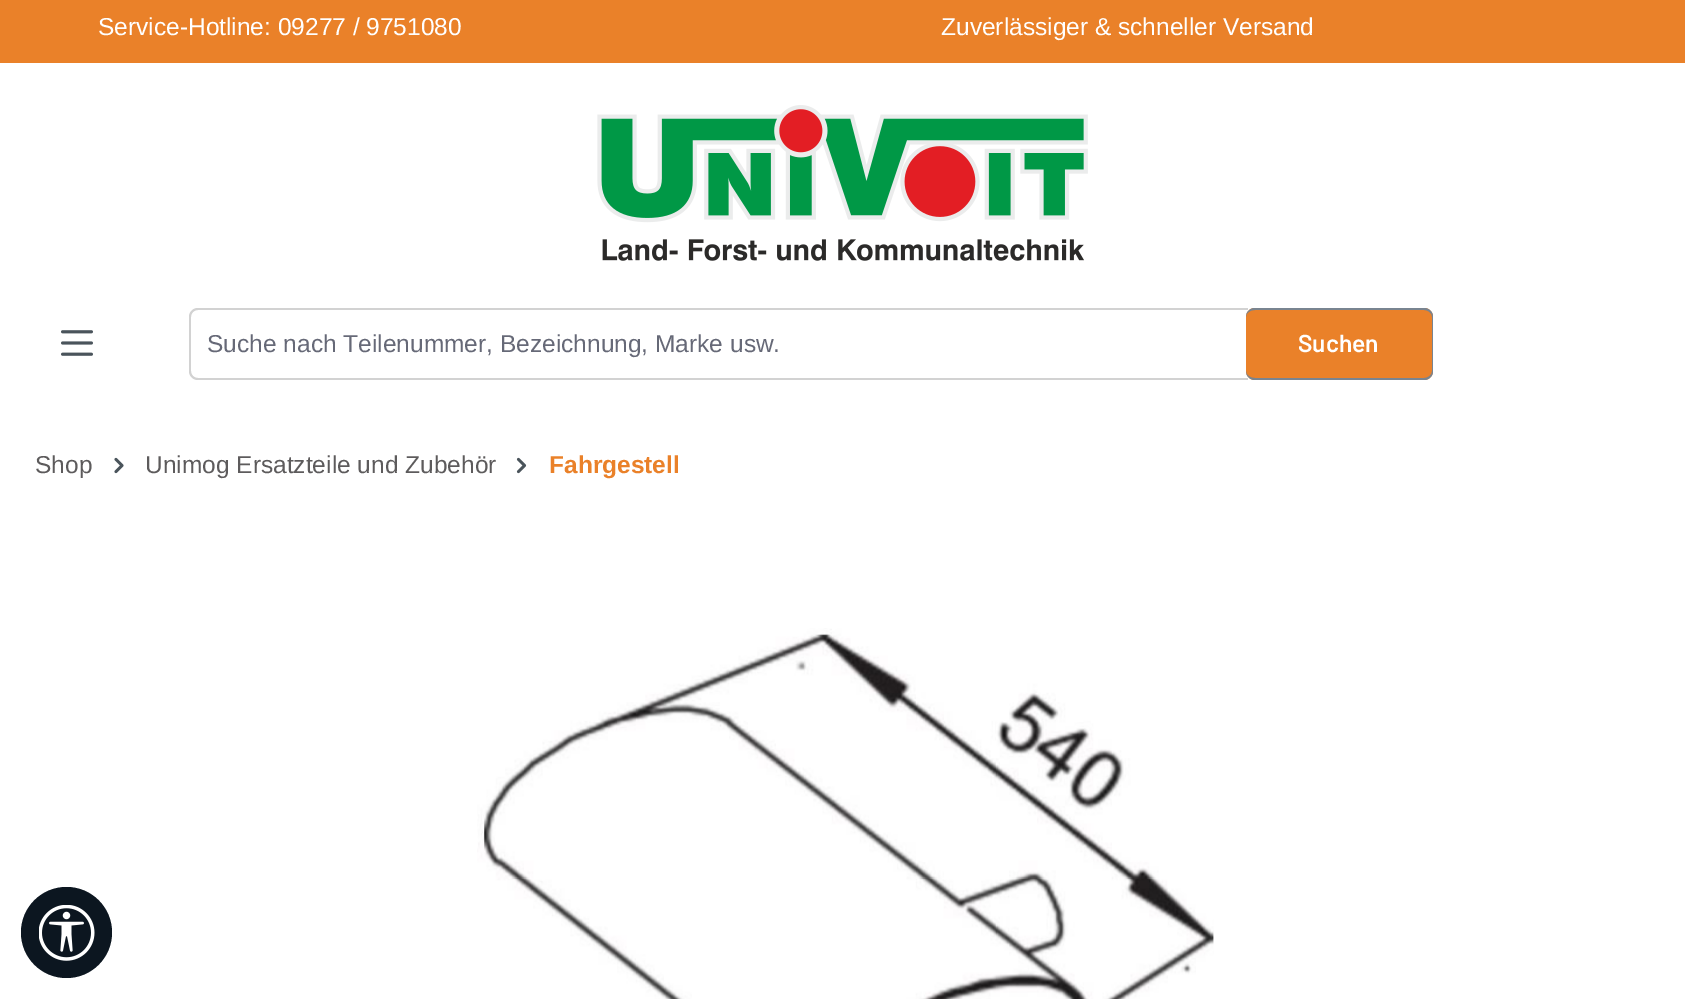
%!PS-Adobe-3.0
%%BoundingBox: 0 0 1685 999
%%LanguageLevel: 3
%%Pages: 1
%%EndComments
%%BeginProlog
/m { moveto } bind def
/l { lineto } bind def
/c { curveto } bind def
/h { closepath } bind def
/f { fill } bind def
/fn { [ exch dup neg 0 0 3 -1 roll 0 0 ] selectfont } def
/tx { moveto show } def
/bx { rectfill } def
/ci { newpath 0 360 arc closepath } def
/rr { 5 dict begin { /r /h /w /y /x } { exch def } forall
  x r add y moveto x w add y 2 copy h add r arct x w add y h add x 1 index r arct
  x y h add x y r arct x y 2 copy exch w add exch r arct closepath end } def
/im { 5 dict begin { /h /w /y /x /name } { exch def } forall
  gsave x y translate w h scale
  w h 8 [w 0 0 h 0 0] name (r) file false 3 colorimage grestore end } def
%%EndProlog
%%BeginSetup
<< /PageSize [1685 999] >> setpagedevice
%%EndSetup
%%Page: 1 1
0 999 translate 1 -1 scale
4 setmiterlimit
1 setgray
0 0 1685 999 bx
0.918 0.506 0.161 setrgbcolor
0 0 1685 63 bx
/LiberationSans-Regular 24.5 fn
1 setgray
(Service-Hotline: 09277 / 9751080) 98 35 tx
(Zuverlässiger & schneller Versand) 941 35 tx
(image0.raw) 597 105 491 156 im
(image1.raw) 61 330 32 26 im
0.824 setgray
198 308 m 1248 308 l 1248 380 l 198 380 l 193 380 189 376 189 371 c 189 317 l 189 312 193 308 198 308 c h 198 310 m 1248 310 l 1248 378 l 198 378 l 194 378 191 375 191 371 c 191 317 l 191 313 194 310 198 310 c h eofill
0.4 0.412 0.467 setrgbcolor
(Suche nach Teilenummer, Bezeichnung, Marke usw.) 207 352 tx
0.918 0.506 0.161 setrgbcolor
1246 308 187 72 9 rr f
0.475 0.518 0.565 setrgbcolor
1255 308 m 1424 308 l 1429 308 1433 312 1433 317 c 1433 371 l 1433 376 1429 380 1424 380 c 1255 380 l 1250 380 1246 376 1246 371 c 1246 317 l 1246 312 1250 308 1255 308 c h 1255 310 m 1424 310 l 1428 310 1432 313 1432 317 c 1432 371 l 1432 375 1428 378 1424 378 c 1255 378 l 1250 378 1246 375 1246 371 c 1246 317 l 1246 313 1250 310 1255 310 c h eofill
/Barlow-SemiBold 24.5 fn
1 setgray
(Suchen) 1298 352 tx
/LiberationSans-Regular 24.5 fn
0.365 0.357 0.361 setrgbcolor
(Shop) 35 473 tx
(image2.raw) 114 457 10 17 im
(Unimog Ersatzteile und Zubehör) 145 473 tx
(image3.raw) 516 457 11 17 im
/LiberationSans-Bold 24.5 fn
0.918 0.506 0.161 setrgbcolor
(Fahrgestell) 549 473 tx
(image4.raw) 477 628 737 371 im
0.047 0.086 0.125 setrgbcolor
66.5 932.5 45.5 ci f
(image5.raw) 39 905 56 56 im
showpage
%%EOF
